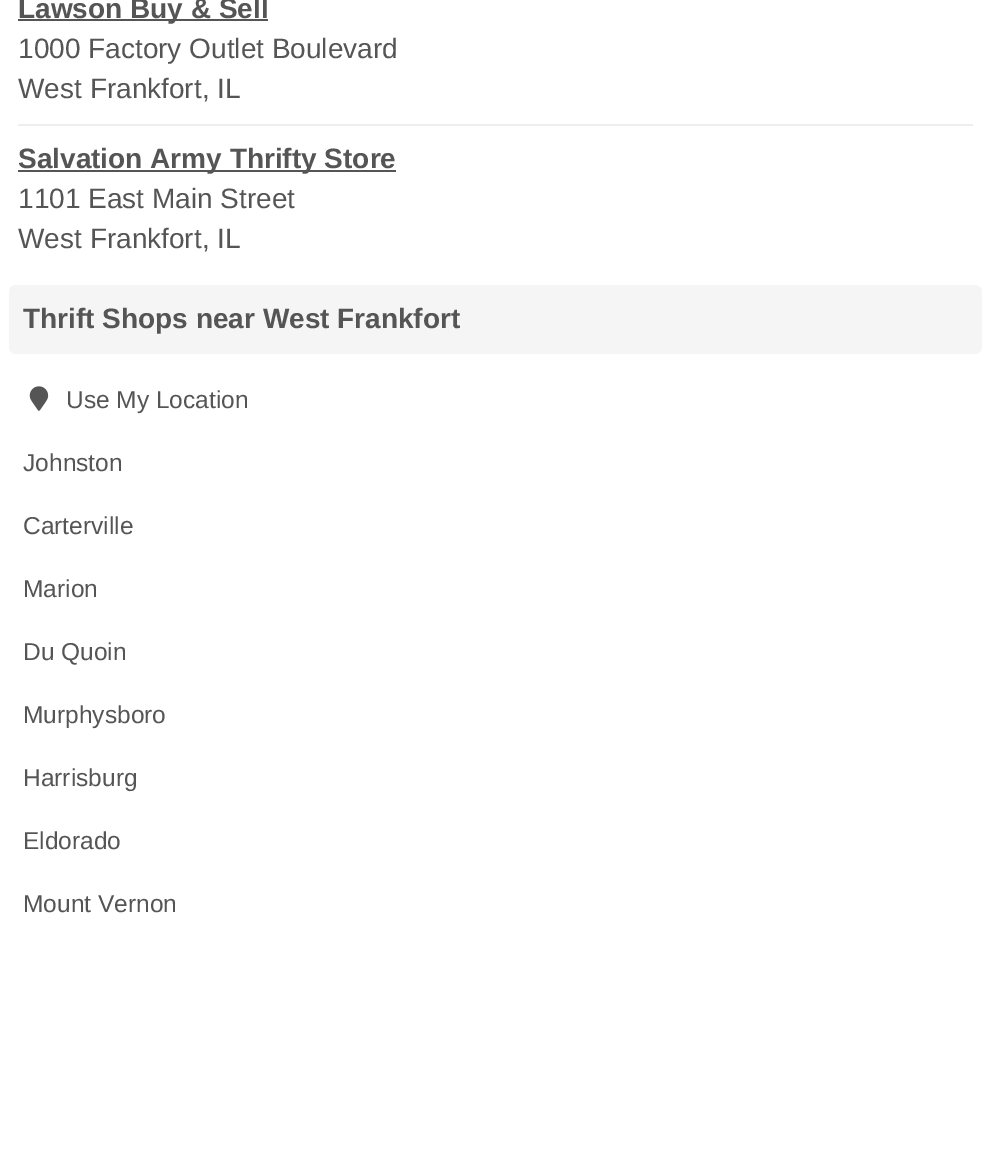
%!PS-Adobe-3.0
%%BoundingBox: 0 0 990 1157
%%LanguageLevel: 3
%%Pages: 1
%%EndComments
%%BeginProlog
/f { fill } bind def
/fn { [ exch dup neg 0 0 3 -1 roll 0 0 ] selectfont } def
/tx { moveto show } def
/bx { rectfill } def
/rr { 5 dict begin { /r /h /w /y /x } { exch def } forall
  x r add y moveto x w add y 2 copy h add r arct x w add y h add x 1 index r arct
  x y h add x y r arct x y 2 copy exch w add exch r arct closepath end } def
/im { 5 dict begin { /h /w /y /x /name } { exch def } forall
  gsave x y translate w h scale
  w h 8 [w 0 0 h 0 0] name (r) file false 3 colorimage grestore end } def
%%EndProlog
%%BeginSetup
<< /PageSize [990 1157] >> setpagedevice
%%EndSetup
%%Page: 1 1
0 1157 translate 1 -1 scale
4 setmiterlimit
1 setgray
0 0 990 1157 bx
0.333 setgray
18 19 250 2 bx
/LiberationSans-Bold 28 fn
(Lawson Buy & Sell) 18 18 tx
/LiberationSans-Regular 28 fn
(1000 Factory Outlet Boulevard) 18 58 tx
(West Frankfort, IL) 18 98 tx
0.933 setgray
18 124 955 2 bx
0.333 setgray
18 170 378 2 bx
/LiberationSans-Bold 28 fn
(Salvation Army Thrifty Store) 18 168 tx
/LiberationSans-Regular 28 fn
(1101 East Main Street) 18 208 tx
(West Frankfort, IL) 18 248 tx
0.961 setgray
9 285 973 69 7 rr f
/LiberationSans-Bold 28 fn
0.333 setgray
(Thrift Shops near West Frankfort) 23 328 tx
(image0.raw) 29 386 20 25 im
/LiberationSans-Regular 24.5 fn
(Use My Location) 66 408 tx
(Johnston) 23 471 tx
(Carterville) 23 534 tx
(Marion) 23 597 tx
(Du Quoin) 23 660 tx
(Murphysboro) 23 723 tx
(Harrisburg) 23 786 tx
(Eldorado) 23 849 tx
(Mount Vernon) 23 912 tx
showpage
%%EOF
